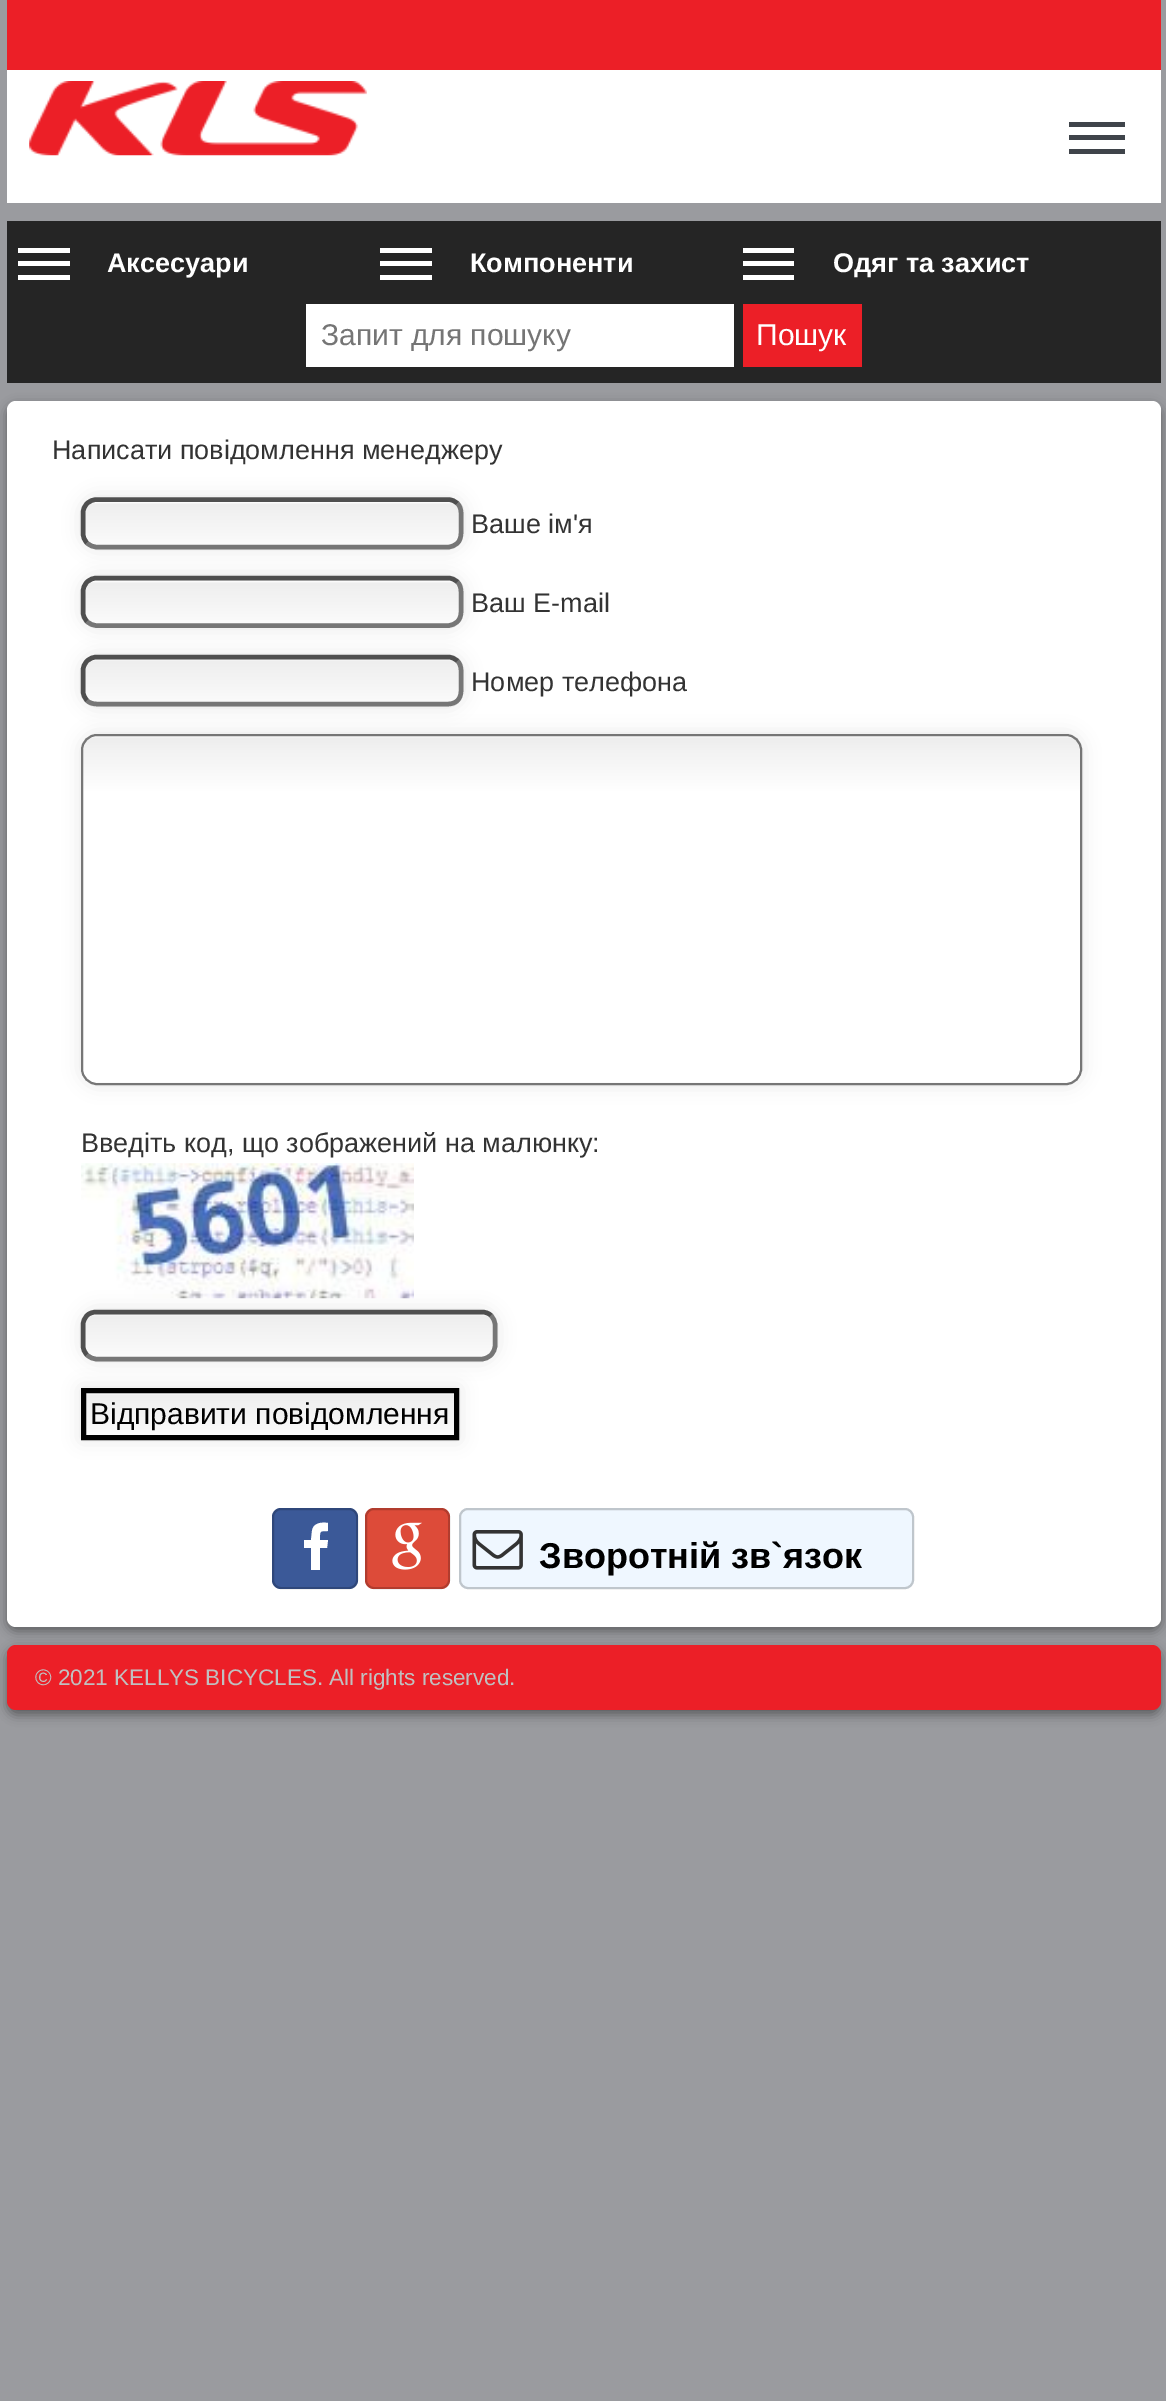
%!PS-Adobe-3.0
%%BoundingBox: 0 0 1166 2401
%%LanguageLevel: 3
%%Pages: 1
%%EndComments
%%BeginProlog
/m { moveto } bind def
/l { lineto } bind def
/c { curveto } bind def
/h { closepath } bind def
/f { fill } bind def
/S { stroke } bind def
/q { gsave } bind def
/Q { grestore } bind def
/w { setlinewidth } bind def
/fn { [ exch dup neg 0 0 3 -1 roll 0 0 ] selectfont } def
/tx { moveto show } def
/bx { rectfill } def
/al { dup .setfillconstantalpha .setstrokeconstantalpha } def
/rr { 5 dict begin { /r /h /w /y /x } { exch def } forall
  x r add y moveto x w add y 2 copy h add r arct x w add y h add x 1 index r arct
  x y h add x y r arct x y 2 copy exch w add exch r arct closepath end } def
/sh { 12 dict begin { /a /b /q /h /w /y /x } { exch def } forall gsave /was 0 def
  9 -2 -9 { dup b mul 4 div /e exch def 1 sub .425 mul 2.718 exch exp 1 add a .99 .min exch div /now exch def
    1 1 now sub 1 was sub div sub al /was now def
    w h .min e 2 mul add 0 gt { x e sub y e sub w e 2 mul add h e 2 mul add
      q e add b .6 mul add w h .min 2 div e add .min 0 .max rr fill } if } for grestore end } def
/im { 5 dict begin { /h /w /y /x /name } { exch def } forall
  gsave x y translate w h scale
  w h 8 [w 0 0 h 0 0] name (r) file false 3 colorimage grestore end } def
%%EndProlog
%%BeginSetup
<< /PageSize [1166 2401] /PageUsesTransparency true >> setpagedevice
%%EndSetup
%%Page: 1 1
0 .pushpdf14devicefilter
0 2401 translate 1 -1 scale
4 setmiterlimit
0.604 0.608 0.624 setrgbcolor
0 0 1166 2401 bx
0.925 0.122 0.153 setrgbcolor
7 0 1154 70 bx
1 setgray
7 70 1154 133 bx
(image0.raw) 29 81 338 75 im
0.247 0.267 0.29 setrgbcolor
1069 122 56 5 bx
1069 135 56 5 bx
1069 149 56 5 bx
0.145 setgray
7 221 1154 162 bx
1 setgray
18 248 52 5 bx
18 261 52 5 bx
18 275 52 5 bx
/LiberationSans-Bold 27 fn
(Аксесуари) 107 272 tx
380 248 52 5 bx
380 261 52 5 bx
380 275 52 5 bx
(Компоненти) 470 272 tx
743 248 51 5 bx
743 261 51 5 bx
743 275 51 5 bx
(Одяг та захист) 833 272 tx
306 304 428 63 bx
/LiberationSans-Regular 30 fn
0.459 setgray
(Запит для пошуку) 321 345 tx
0.925 0.122 0.153 setrgbcolor
743 304 119 63 bx
1 setgray
(Пошук) 756 345 tx
0 setgray
7 405 1154 1226 9 5.5 0.4 sh
1 setgray
7 401 1154 1226 9 rr f
/LiberationSans-Regular 27 fn
0.2 setgray
(Написати повідомлення менеджеру) 52 459 tx
0 setgray
81 497 383 52 16 9 0.1 sh
q
81 497 383 52 16 rr clip newpath
q 81 497 m 464 497 l 464 502 l 81 502 l h clip newpath
<< /ShadingType 2 /ColorSpace /DeviceRGB /Coords [86 459 86 515] /Extend [true true] /Function << /FunctionType 3 /Domain [0 1] /Functions [<< /FunctionType 2 /Domain [0 1] /C0 [1 1 1] /C1 [0.933 0.933 0.933] /N 1 >> << /FunctionType 2 /Domain [0 1] /C0 [0.933 0.933 0.933] /C1 [1 1 1] /N 1 >>] /Bounds [0.04] /Encode [0 1 0 1] >> >> shfill Q
q 81 502 m 464 502 l 464 545 l 81 545 l h clip newpath
<< /ShadingType 2 /ColorSpace /DeviceRGB /Coords [86 502 86 558] /Extend [true true] /Function << /FunctionType 3 /Domain [0 1] /Functions [<< /FunctionType 2 /Domain [0 1] /C0 [1 1 1] /C1 [0.933 0.933 0.933] /N 1 >> << /FunctionType 2 /Domain [0 1] /C0 [0.933 0.933 0.933] /C1 [1 1 1] /N 1 >>] /Bounds [0.04] /Encode [0 1 0 1] >> >> shfill Q
Q
0.463 setgray
4.5 w
457.5 503.5 m 460 506 461 509.5 461 513 c 461 533 l 461 537 460 540.5 457.5 543 c 455 545.5 451.5 547 448 547 c 97 547 l 93 547 89.5 545.5 87 543 c S
0.31 setgray
87 543 m 84.5 540.5 83 537 83 533 c 83 513 l 83 509.5 84.5 506 87 503.5 c 89.5 501 93 499.5 97 499.5 c 448 499.5 l 451.5 499.5 455 501 457.5 503.5 c S
0.2 setgray
(Ваше iм'я) 471 533 tx
0 setgray
81 576 383 52 16 9 0.1 sh
q
81 576 383 52 16 rr clip newpath
q 81 576 m 464 576 l 464 581 l 81 581 l h clip newpath
<< /ShadingType 2 /ColorSpace /DeviceRGB /Coords [86 538 86 594] /Extend [true true] /Function << /FunctionType 3 /Domain [0 1] /Functions [<< /FunctionType 2 /Domain [0 1] /C0 [1 1 1] /C1 [0.933 0.933 0.933] /N 1 >> << /FunctionType 2 /Domain [0 1] /C0 [0.933 0.933 0.933] /C1 [1 1 1] /N 1 >>] /Bounds [0.04] /Encode [0 1 0 1] >> >> shfill Q
q 81 581 m 464 581 l 464 623 l 81 623 l h clip newpath
<< /ShadingType 2 /ColorSpace /DeviceRGB /Coords [86 581 86 637] /Extend [true true] /Function << /FunctionType 3 /Domain [0 1] /Functions [<< /FunctionType 2 /Domain [0 1] /C0 [1 1 1] /C1 [0.933 0.933 0.933] /N 1 >> << /FunctionType 2 /Domain [0 1] /C0 [0.933 0.933 0.933] /C1 [1 1 1] /N 1 >>] /Bounds [0.04] /Encode [0 1 0 1] >> >> shfill Q
q 81 623 m 464 623 l 464 628 l 81 628 l h clip newpath
<< /ShadingType 2 /ColorSpace /DeviceRGB /Coords [86 623 86 680] /Extend [true true] /Function << /FunctionType 3 /Domain [0 1] /Functions [<< /FunctionType 2 /Domain [0 1] /C0 [1 1 1] /C1 [0.933 0.933 0.933] /N 1 >> << /FunctionType 2 /Domain [0 1] /C0 [0.933 0.933 0.933] /C1 [1 1 1] /N 1 >>] /Bounds [0.04] /Encode [0 1 0 1] >> >> shfill Q
Q
0.463 setgray
457.5 582 m 460 584.5 461 588 461 592 c 461 612 l 461 615.5 460 619 457.5 621.5 c 455 624 451.5 625.5 448 625.5 c 97 625.5 l 93 625.5 89.5 624 87 621.5 c S
0.31 setgray
87 621.5 m 84.5 619 83 615.5 83 612 c 83 592 l 83 588 84.5 584.5 87 582 c 89.5 579.5 93 578 97 578 c 448 578 l 451.5 578 455 579.5 457.5 582 c S
0.2 setgray
(Ваш E-mail) 471 612 tx
0 setgray
81 655 383 52 16 9 0.1 sh
q
81 655 383 52 16 rr clip newpath
q 81 659 m 464 659 l 464 702 l 81 702 l h clip newpath
<< /ShadingType 2 /ColorSpace /DeviceRGB /Coords [86 659 86 716] /Extend [true true] /Function << /FunctionType 3 /Domain [0 1] /Functions [<< /FunctionType 2 /Domain [0 1] /C0 [1 1 1] /C1 [0.933 0.933 0.933] /N 1 >> << /FunctionType 2 /Domain [0 1] /C0 [0.933 0.933 0.933] /C1 [1 1 1] /N 1 >>] /Bounds [0.04] /Encode [0 1 0 1] >> >> shfill Q
q 81 702 m 464 702 l 464 707 l 81 707 l h clip newpath
<< /ShadingType 2 /ColorSpace /DeviceRGB /Coords [86 702 86 758] /Extend [true true] /Function << /FunctionType 3 /Domain [0 1] /Functions [<< /FunctionType 2 /Domain [0 1] /C0 [1 1 1] /C1 [0.933 0.933 0.933] /N 1 >> << /FunctionType 2 /Domain [0 1] /C0 [0.933 0.933 0.933] /C1 [1 1 1] /N 1 >>] /Bounds [0.04] /Encode [0 1 0 1] >> >> shfill Q
Q
0.463 setgray
457.5 661 m 460 663.5 461 667 461 670.5 c 461 691 l 461 694.5 460 698 457.5 700.5 c 455 703 451.5 704 448 704 c 97 704 l 93 704 89.5 703 87 700.5 c S
0.31 setgray
87 700.5 m 84.5 698 83 694.5 83 691 c 83 670.5 l 83 667 84.5 663.5 87 661 c 89.5 658.5 93 657 97 657 c 448 657 l 451.5 657 455 658.5 457.5 661 c S
0.2 setgray
(Номер телефона) 471 691 tx
0 setgray
81 734 1001 351 16 9 0.1 sh
q
81 734 1001 351 16 rr clip newpath
q 81 736 m 1082 736 l 1082 1082 l 81 1082 l h clip newpath
<< /ShadingType 2 /ColorSpace /DeviceRGB /Coords [83 736 83 792] /Extend [true true] /Function << /FunctionType 3 /Domain [0 1] /Functions [<< /FunctionType 2 /Domain [0 1] /C0 [1 1 1] /C1 [0.933 0.933 0.933] /N 1 >> << /FunctionType 2 /Domain [0 1] /C0 [0.933 0.933 0.933] /C1 [1 1 1] /N 1 >>] /Bounds [0.04] /Encode [0 1 0 1] >> >> shfill Q
q 81 1082 m 1082 1082 l 1082 1085 l 81 1085 l h clip newpath
<< /ShadingType 2 /ColorSpace /DeviceRGB /Coords [83 1082 83 1139] /Extend [true true] /Function << /FunctionType 3 /Domain [0 1] /Functions [<< /FunctionType 2 /Domain [0 1] /C0 [1 1 1] /C1 [0.933 0.933 0.933] /N 1 >> << /FunctionType 2 /Domain [0 1] /C0 [0.933 0.933 0.933] /C1 [1 1 1] /N 1 >>] /Bounds [0.04] /Encode [0 1 0 1] >> >> shfill Q
Q
0.463 setgray
2 w
82 735 999 349 15 rr S
0.2 setgray
(Введіть код, що зображений на малюнку:) 81 1152 tx
(image1.raw) 81 1163 333 136 im
0 setgray
81 1310 416 51 16 9 0.1 sh
q
81 1310 416 51 16 rr clip newpath
q 81 1314 m 497 1314 l 497 1357 l 81 1357 l h clip newpath
<< /ShadingType 2 /ColorSpace /DeviceRGB /Coords [86 1314 86 1370] /Extend [true true] /Function << /FunctionType 3 /Domain [0 1] /Functions [<< /FunctionType 2 /Domain [0 1] /C0 [1 1 1] /C1 [0.933 0.933 0.933] /N 1 >> << /FunctionType 2 /Domain [0 1] /C0 [0.933 0.933 0.933] /C1 [1 1 1] /N 1 >>] /Bounds [0.04] /Encode [0 1 0 1] >> >> shfill Q
Q
0.463 setgray
4.5 w
491 1315.5 m 493.5 1318 495 1321.5 495 1325 c 495 1345.5 l 495 1349 493.5 1352.5 491 1355 c 488.5 1357.5 485 1359 481.5 1359 c 97 1359 l 93 1359 89.5 1357.5 87 1355 c S
0.31 setgray
87 1355 m 84.5 1352.5 83 1349 83 1345.5 c 83 1325 l 83 1321.5 84.5 1318 87 1315.5 c 89.5 1313 93 1312 97 1312 c 481.5 1312 l 485 1312 488.5 1313 491 1315.5 c S
0 setgray
81 1388 378 52 0 9 0.1 sh
q 86 1393 m 454 1393 l 454 1435 l 86 1435 l h clip newpath
<< /ShadingType 2 /ColorSpace /DeviceRGB /Coords [86 1393 86 1449] /Extend [true true] /Function << /FunctionType 3 /Domain [0 1] /Functions [<< /FunctionType 2 /Domain [0 1] /C0 [1 1 1] /C1 [0.933 0.933 0.933] /N 1 >> << /FunctionType 2 /Domain [0 1] /C0 [0.933 0.933 0.933] /C1 [1 1 1] /N 1 >>] /Bounds [0.04] /Encode [0 1 0 1] >> >> shfill Q
5 w
83.5 1390.5 373 47 rectstroke
/LiberationSans-Regular 30 fn
(Відправити повідомлення) 90 1424 tx
0.231 0.349 0.596 setrgbcolor
272 1508 86 81 9 rr f
0.2 al
0 setgray
2 w
273 1509 84 79 8 rr S
1 al
1 setgray
328 1523 m 328 1531 l 319 1531 320 1531 320 1540 c 328 1540 l 327 1548 l 320 1548 l 320 1570 l 311 1570 l 311 1548 l 304 1548 l 304 1540 l 311 1540 l 312 1531 l 313 1523 321 1522 328 1523 c h f
0.867 0.294 0.224 setrgbcolor
365 1508 85 81 9 rr f
0.2 al
0 setgray
366 1509 83 79 8 rr S
1 al
(image2.raw) 392 1522 30 48 im
0.937 0.969 1 setrgbcolor
459 1508 455 81 9 rr f
0.2 al
0 setgray
460 1509 453 79 8 rr S
1 al
(image3.raw) 472 1530 51 40 im
/LiberationSans-Bold 36 fn
(Зворотній зв`язок) 539 1568 tx
7 1649 1154 66 9 5.5 0.4 sh
0.925 0.122 0.153 setrgbcolor
7 1645 1154 65 9 rr f
/LiberationSans-Regular 22.5 fn
0.753 setgray
(© 2021 KELLYS BICYCLES. All rights reserved.) 35 1685 tx
.poppdf14devicefilter showpage
%%EOF
